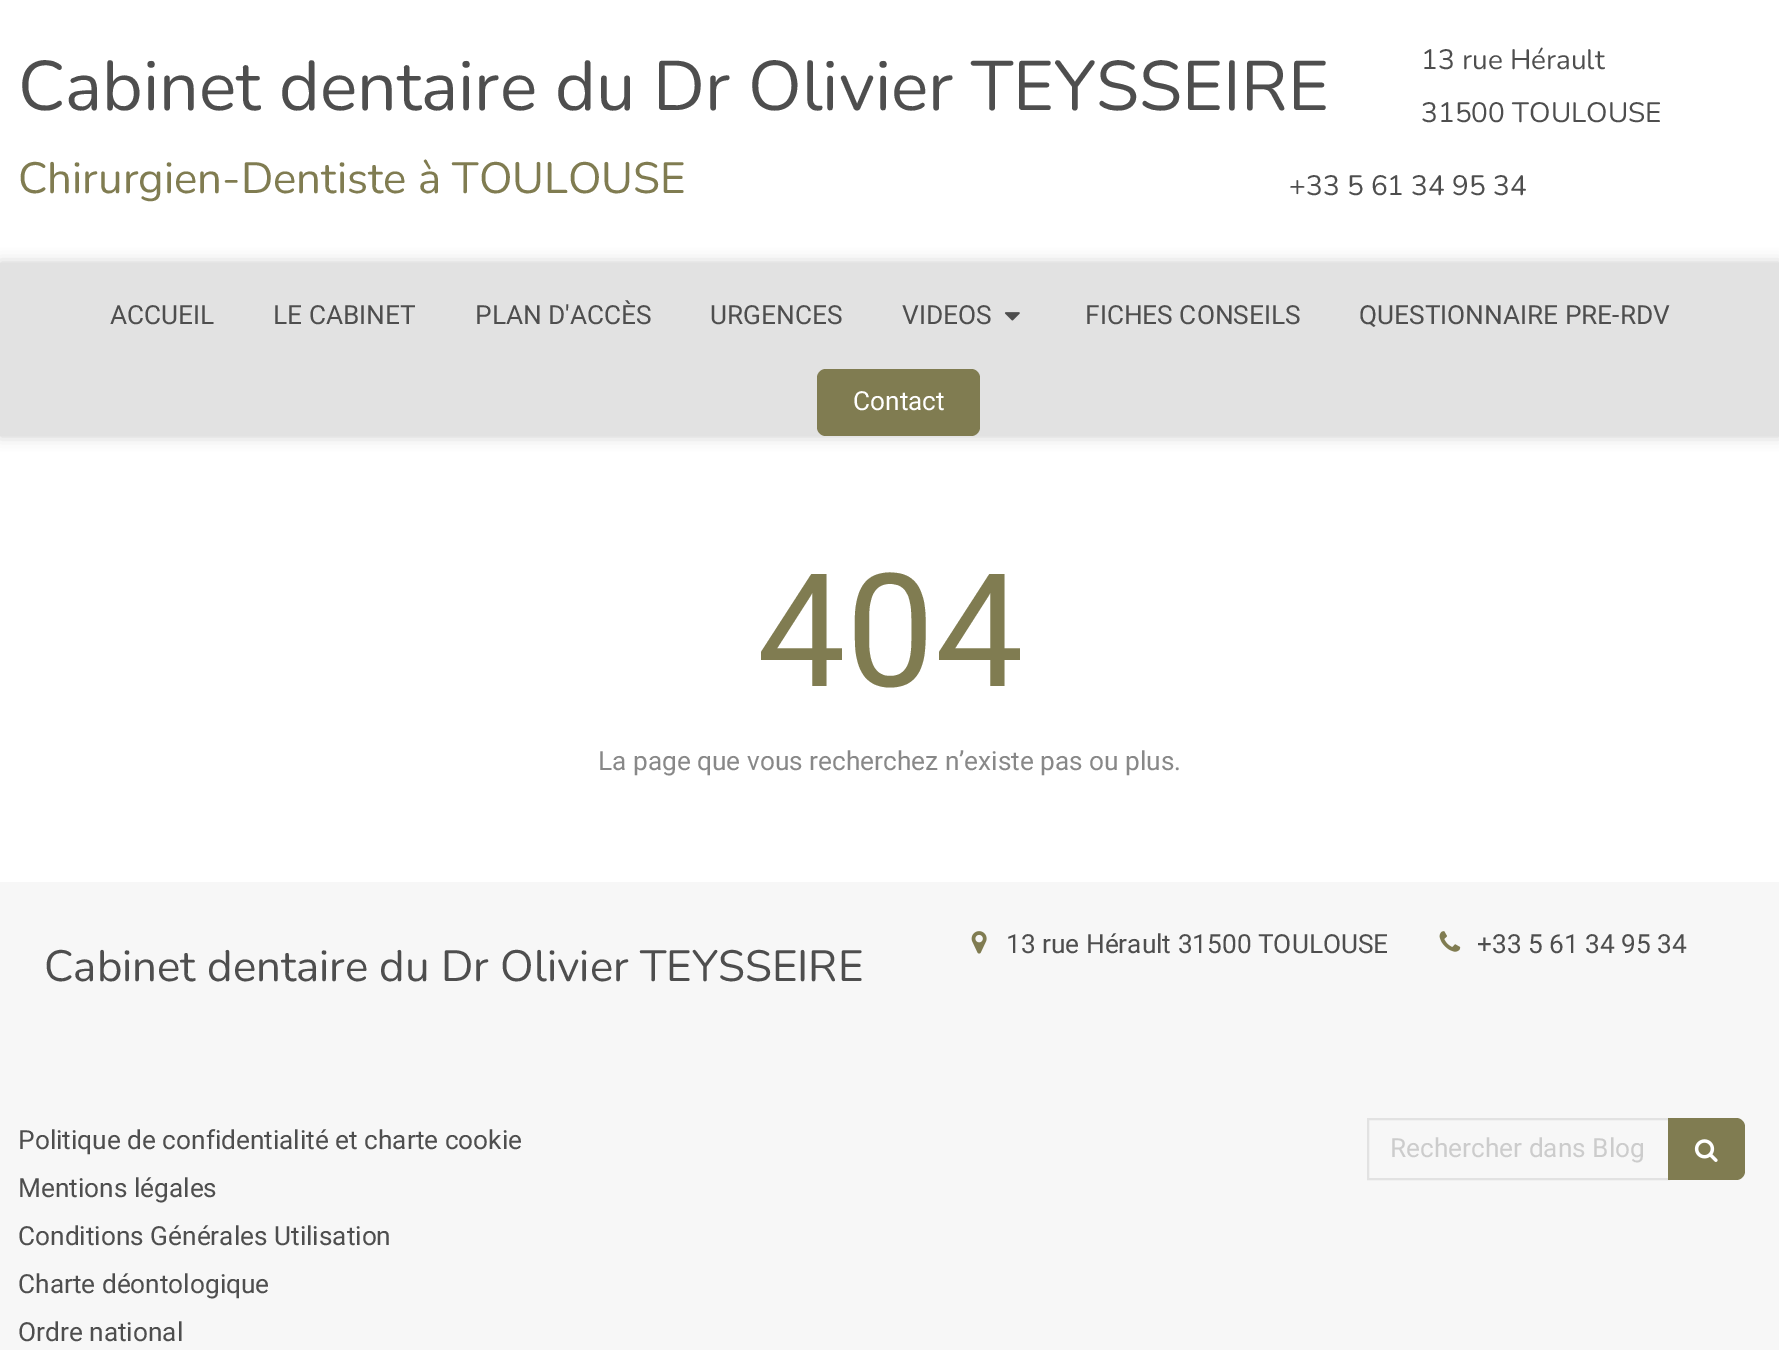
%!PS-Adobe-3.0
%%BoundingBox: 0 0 1779 1350
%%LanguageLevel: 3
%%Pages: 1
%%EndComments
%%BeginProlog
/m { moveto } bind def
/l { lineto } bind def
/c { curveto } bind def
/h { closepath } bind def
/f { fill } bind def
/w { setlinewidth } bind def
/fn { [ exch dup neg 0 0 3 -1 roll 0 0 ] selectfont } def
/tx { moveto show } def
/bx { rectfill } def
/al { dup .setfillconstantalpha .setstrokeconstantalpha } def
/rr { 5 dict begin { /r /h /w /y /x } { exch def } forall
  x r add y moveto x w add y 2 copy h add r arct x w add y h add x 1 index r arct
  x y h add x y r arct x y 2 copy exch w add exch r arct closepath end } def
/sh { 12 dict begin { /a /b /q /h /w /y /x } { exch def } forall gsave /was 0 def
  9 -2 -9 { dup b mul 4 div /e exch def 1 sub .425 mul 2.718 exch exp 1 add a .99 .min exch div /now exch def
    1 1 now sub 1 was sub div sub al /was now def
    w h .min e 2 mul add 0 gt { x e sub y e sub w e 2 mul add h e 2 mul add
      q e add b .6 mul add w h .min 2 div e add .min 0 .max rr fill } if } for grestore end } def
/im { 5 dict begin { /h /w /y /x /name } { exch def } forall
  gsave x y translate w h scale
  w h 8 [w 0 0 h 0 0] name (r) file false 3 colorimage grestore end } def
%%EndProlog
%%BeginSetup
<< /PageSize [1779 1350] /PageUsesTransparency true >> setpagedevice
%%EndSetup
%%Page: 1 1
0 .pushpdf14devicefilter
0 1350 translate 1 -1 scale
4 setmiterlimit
1 setgray
0 0 1779 1350 bx
/Nunito-Regular 70 fn
0.306 setgray
(Cabinet dentaire du Dr Olivier TEYSSEIRE) 18 110 tx
/Nunito-Regular 28 fn
(13 rue Hérault) 1421 69 tx
(31500 TOULOUSE) 1421 122 tx
/Nunito-Regular 43.75 fn
0.502 0.486 0.318 setrgbcolor
(Chirurgien-Dentiste à TOULOUSE) 18 193 tx
/Nunito-Regular 28 fn
0.306 setgray
(+33 5 61 34 95 34) 1289 195 tx
0 setgray
0 263 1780 173 0 7 0.2 sh
0.886 setgray
0 263 1779 173 bx
/Roboto-Regular 26.25 fn
0.306 setgray
(ACCUEIL) 110 324 tx
(LE CABINET) 273 324 tx
(PLAN D'ACCÈS) 475 324 tx
(URGENCES) 710 324 tx
(VIDEOS) 902 324 tx
(image0.raw) 1004 312 16 9 im
(FICHES CONSEILS) 1085 324 tx
(QUESTIONNAIRE PRE-RDV) 1359 324 tx
0.502 0.486 0.318 setrgbcolor
817 369 163 67 9 rr f
1 setgray
(Contact) 853 410 tx
/Roboto-Regular 158 fn
0.502 0.486 0.318 setrgbcolor
(404) 757 686 tx
/Roboto-Regular 26.25 fn
0.533 setgray
(La page que vous recherchez n’existe pas ou plus.) 598 770 tx
0.969 setgray
0 882 1779 468 bx
(image1.raw) 971 931 16 23 im
0.306 setgray
(13 rue Hérault 31500 TOULOUSE) 1006 953 tx
(image2.raw) 1439 931 22 21 im
(+33 5 61 34 95 34) 1477 953 tx
/Nunito-Regular 43.75 fn
(Cabinet dentaire du Dr Olivier TEYSSEIRE) 44 981 tx
/Roboto-Regular 26.25 fn
(Politique de confidentialité et charte cookie) 18 1149 tx
(Mentions légales) 18 1197 tx
(Conditions Générales Utilisation) 18 1245 tx
(Charte déontologique) 18 1293 tx
(Ordre national) 18 1341 tx
0.886 setgray
2 w
1368 1119 301 60 rectstroke
0.8 setgray
(Rechercher dans Blog) 1390 1157 tx
0.502 0.486 0.318 setrgbcolor
1668 1118 m 1736 1118 l 1741 1118 1745 1122 1745 1127 c 1745 1171 l 1745 1176 1741 1180 1736 1180 c 1668 1180 l h f
(image3.raw) 1694 1139 24 23 im
.poppdf14devicefilter showpage
%%EOF
